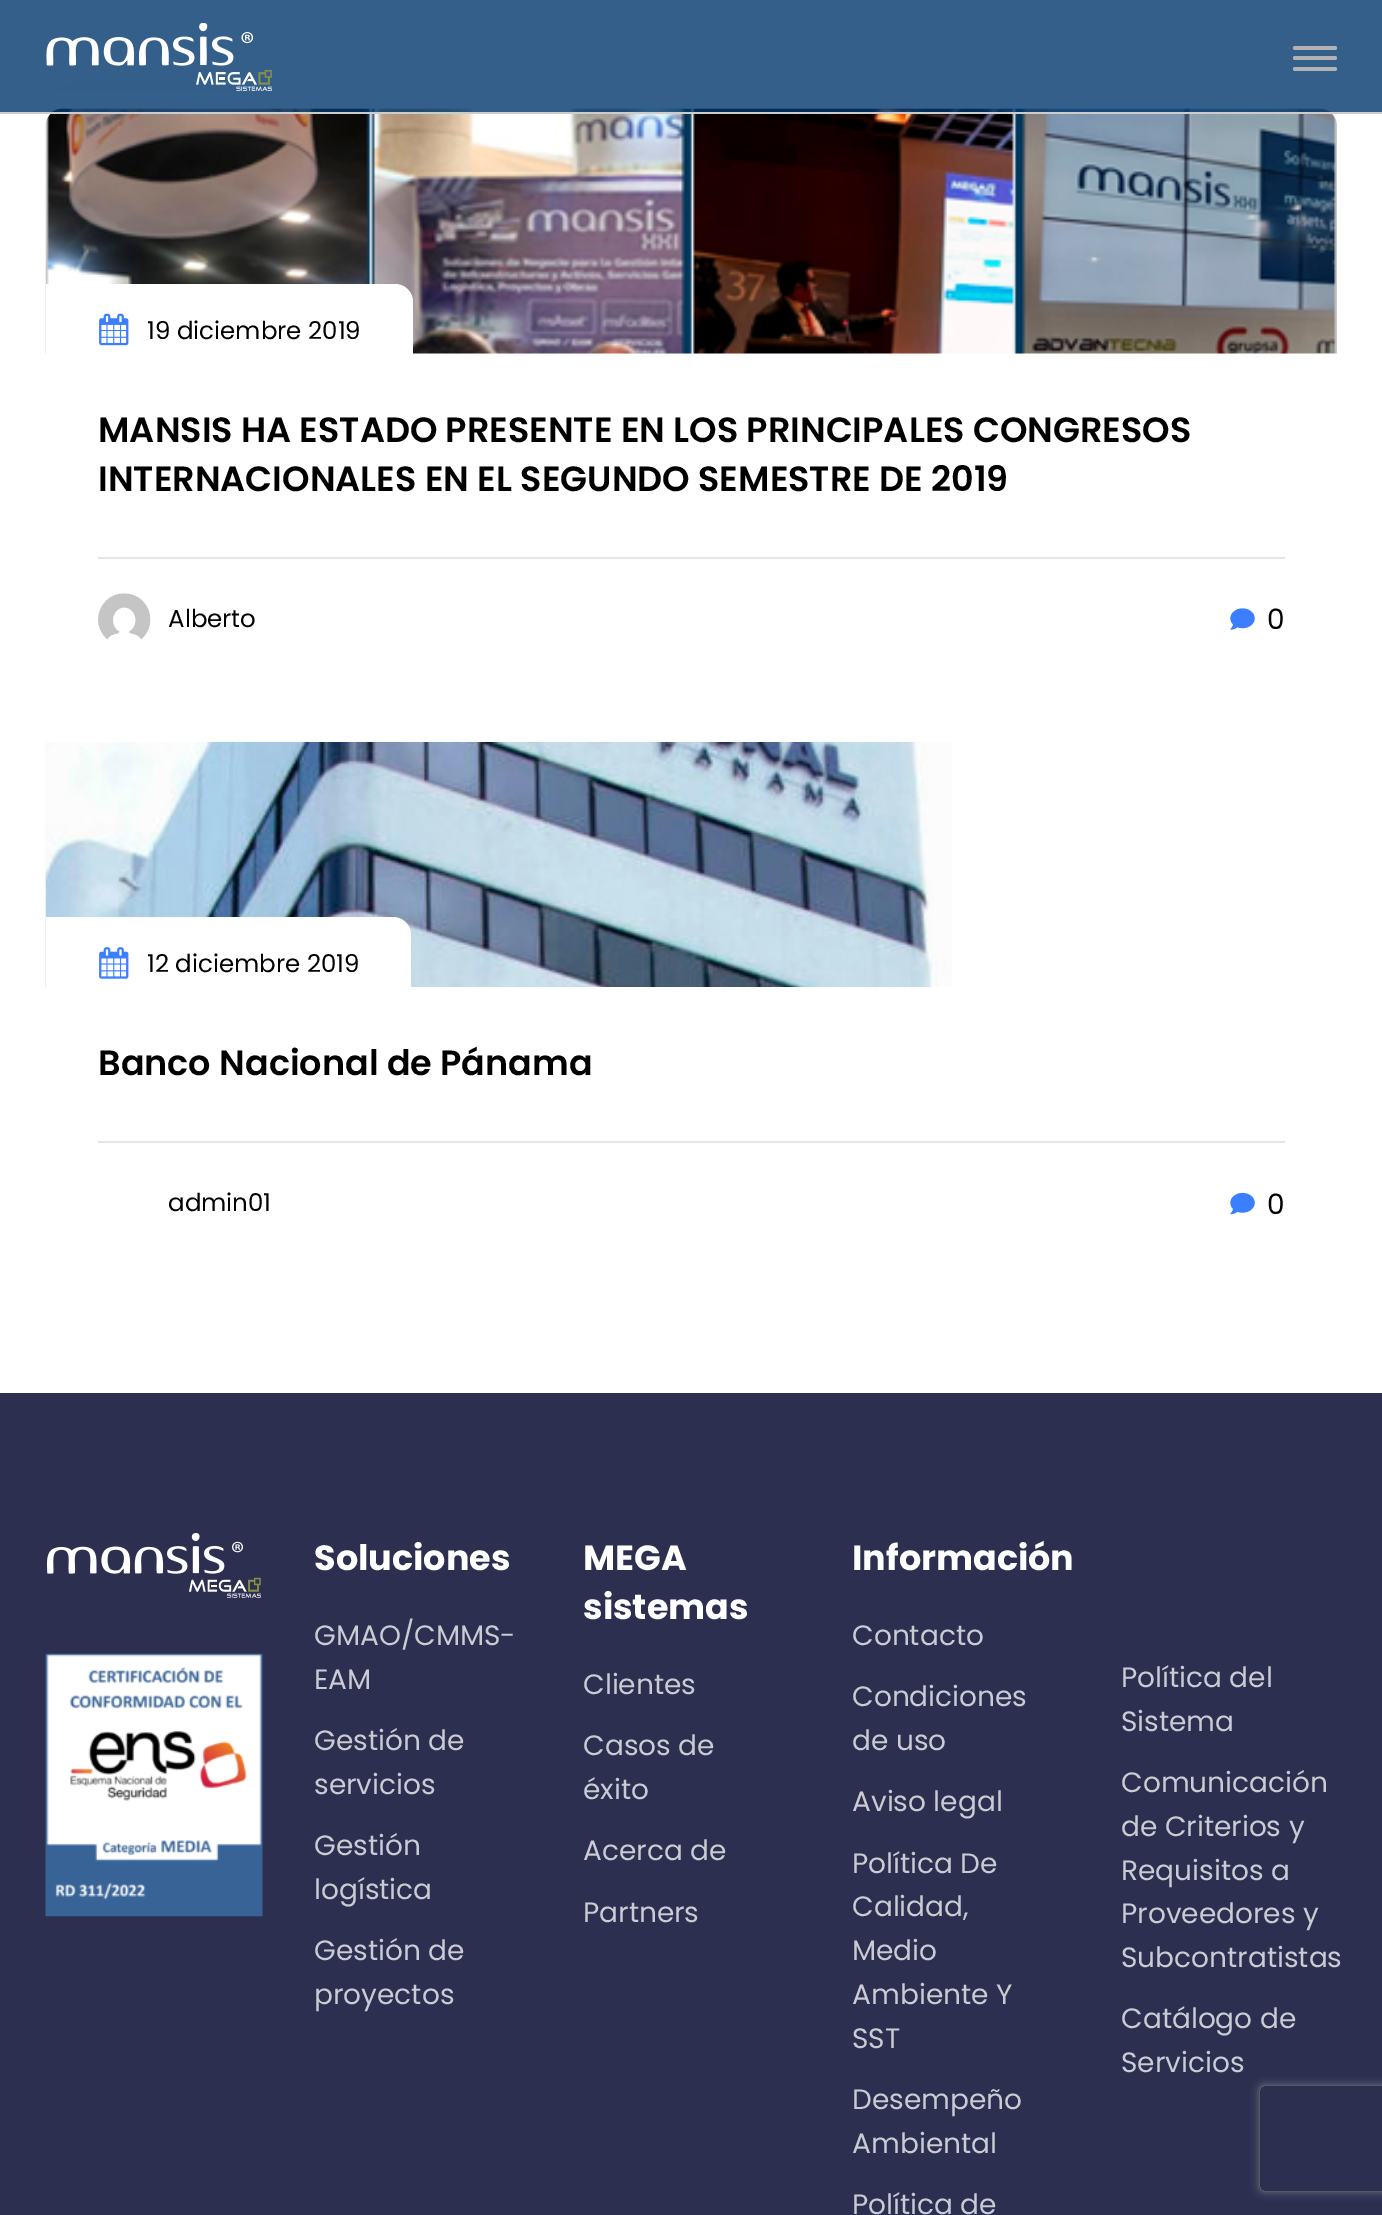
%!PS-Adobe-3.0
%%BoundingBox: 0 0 1382 2215
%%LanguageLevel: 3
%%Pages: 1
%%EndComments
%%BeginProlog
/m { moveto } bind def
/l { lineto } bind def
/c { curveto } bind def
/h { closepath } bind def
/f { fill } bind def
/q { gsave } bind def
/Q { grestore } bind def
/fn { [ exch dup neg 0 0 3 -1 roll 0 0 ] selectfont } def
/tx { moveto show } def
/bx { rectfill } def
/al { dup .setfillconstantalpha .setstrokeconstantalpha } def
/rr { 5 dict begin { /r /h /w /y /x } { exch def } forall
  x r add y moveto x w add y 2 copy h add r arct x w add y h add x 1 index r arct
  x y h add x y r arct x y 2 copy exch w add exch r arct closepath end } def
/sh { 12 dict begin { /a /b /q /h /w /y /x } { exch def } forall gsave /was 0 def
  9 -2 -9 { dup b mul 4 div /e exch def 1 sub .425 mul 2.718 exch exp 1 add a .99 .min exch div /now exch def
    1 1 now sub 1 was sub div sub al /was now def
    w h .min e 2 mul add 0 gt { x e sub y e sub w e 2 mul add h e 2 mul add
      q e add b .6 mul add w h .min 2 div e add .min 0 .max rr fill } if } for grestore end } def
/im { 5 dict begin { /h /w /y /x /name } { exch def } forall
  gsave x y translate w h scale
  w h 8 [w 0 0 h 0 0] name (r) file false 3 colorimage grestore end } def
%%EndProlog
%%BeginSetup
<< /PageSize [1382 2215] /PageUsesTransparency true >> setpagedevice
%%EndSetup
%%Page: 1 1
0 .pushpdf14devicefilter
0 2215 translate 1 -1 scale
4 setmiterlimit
1 setgray
0 0 1382 2215 bx
(image1.raw) 45 108 1292 246 im
0.8 al
0 0.216 0.427 setrgbcolor
0 0 1382 112 bx
1 al
(image0.raw) 46 23 226 68 im
0.698 setgray
1293 46 44 4 2 rr f
1293 56 44 4 2 rr f
1293 67 44 4 2 rr f
0.8 setgray
0 112 1382 2 bx
1 setgray
46 284 m 395 284 l 405 284 413 292 413 302 c 413 355 l 46 355 l h f
(image2.raw) 99 313 30 33 im
/Poppins-Regular 24.5 fn
0 setgray
(19 diciembre 2019) 147 339 tx
/Poppins-SemiBold 35 fn
(MANSIS HA ESTADO PRESENTE EN LOS PRINCIPALES CONGRESOS) 98 442 tx
(INTERNACIONALES EN EL SEGUNDO SEMESTRE DE 2019) 98 491 tx
0.898 setgray
98 557 1187 2 1 rr f
(image3.raw) 98 593 53 47 im
/Poppins-Regular 24.5 fn
0 setgray
(Alberto) 168 627 tx
(image4.raw) 1230 608 25 22 im
/Poppins-Regular 28 fn
(0) 1267 629 tx
(image5.raw) 45 742 907 245 im
1 setgray
46 917 m 393 917 l 403 917 411 925 411 935 c 411 989 l 46 989 l h f
(image6.raw) 99 947 30 32 im
/Poppins-Regular 24.5 fn
0 setgray
(12 diciembre 2019) 147 972 tx
/Poppins-SemiBold 35 fn
(Banco Nacional de Pánama) 98 1075 tx
0.898 setgray
98 1141 1187 2 1 rr f
/Poppins-Regular 24.5 fn
0 setgray
(admin01) 168 1211 tx
(image7.raw) 1230 1192 25 23 im
/Poppins-Regular 28 fn
(0) 1267 1214 tx
0.173 0.184 0.314 setrgbcolor
0 1393 1382 822 bx
(image8.raw) 46 1533 215 65 im
(image9.raw) 45 1653 218 264 im
/Poppins-Bold 35 fn
1 setgray
(Soluciones) 314 1570 tx
/Poppins-Regular 28 fn
0.792 0.796 0.827 setrgbcolor
(GMAO/CMMS-) 314 1645 tx
(EAM) 314 1689 tx
(Gestión de) 314 1750 tx
(servicios) 314 1794 tx
(Gestión) 314 1855 tx
(logística) 314 1899 tx
(Gestión de) 314 1960 tx
(proyectos) 314 2004 tx
/Poppins-Bold 35 fn
1 setgray
(MEGA) 583 1570 tx
(sistemas) 583 1619 tx
/Poppins-Regular 28 fn
0.792 0.796 0.827 setrgbcolor
(Clientes) 583 1694 tx
(Casos de) 583 1755 tx
(éxito) 583 1799 tx
(Acerca de) 583 1860 tx
(Partners) 583 1922 tx
/Poppins-Bold 35 fn
1 setgray
(Información) 852 1570 tx
/Poppins-Regular 28 fn
0.792 0.796 0.827 setrgbcolor
(Contacto) 852 1645 tx
(Condiciones) 852 1706 tx
(de uso) 852 1750 tx
(Aviso legal) 852 1811 tx
(Política De) 852 1873 tx
(Calidad,) 852 1916 tx
(Medio) 852 1960 tx
(Ambiente Y) 852 2004 tx
(SST) 852 2048 tx
(Desempeño) 852 2109 tx
(Ambiental) 852 2153 tx
(Política de) 852 2214 tx
(Política del) 1121 1687 tx
(Sistema) 1121 1731 tx
(Comunicación) 1121 1792 tx
(de Criterios y) 1121 1836 tx
(Requisitos a) 1121 1880 tx
(Proveedores y) 1121 1923 tx
(Subcontratistas) 1121 1967 tx
(Catálogo de) 1121 2028 tx
(Servicios) 1121 2072 tx
q
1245 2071 m 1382 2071 l 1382 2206 l 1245 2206 l h 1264 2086 m 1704 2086 l 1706 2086 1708 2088 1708 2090 c 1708 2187 l 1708 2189 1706 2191 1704 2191 c 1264 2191 l 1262 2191 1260 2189 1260 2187 c 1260 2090 l 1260 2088 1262 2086 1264 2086 c h eoclip newpath
0.502 setgray
1260 2086 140 105 4 4.5 1 sh
Q
.poppdf14devicefilter showpage
%%EOF
